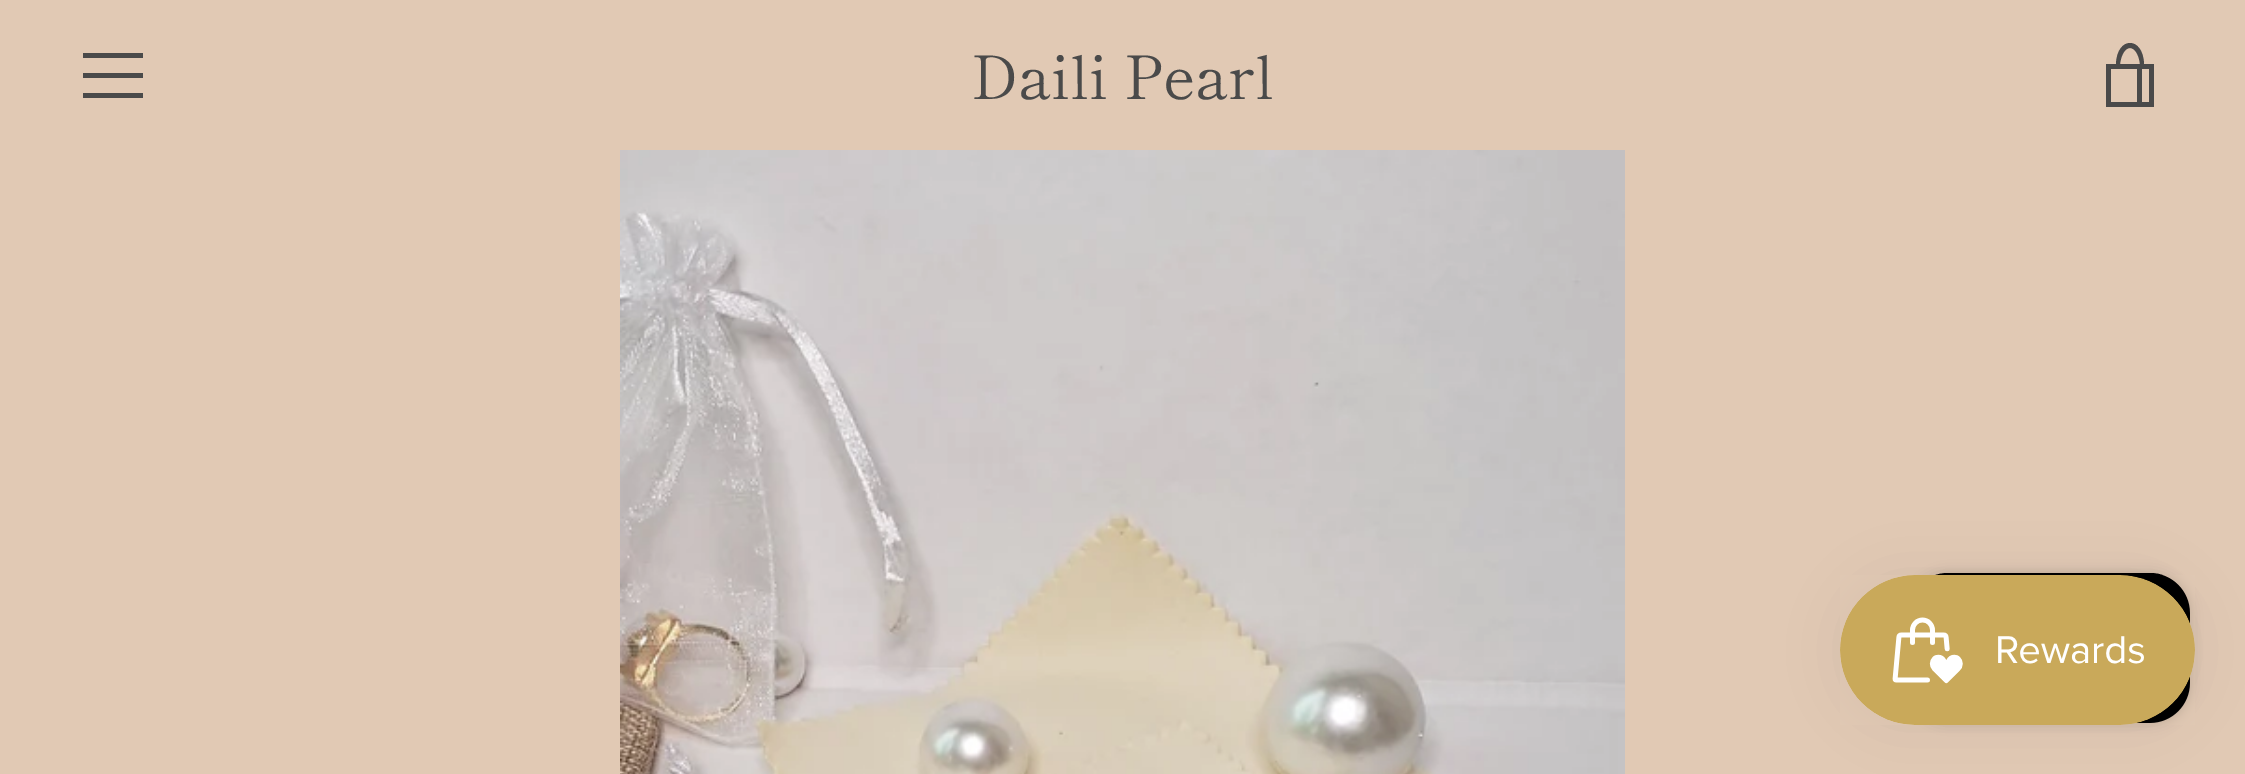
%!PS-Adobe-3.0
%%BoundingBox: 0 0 2245 774
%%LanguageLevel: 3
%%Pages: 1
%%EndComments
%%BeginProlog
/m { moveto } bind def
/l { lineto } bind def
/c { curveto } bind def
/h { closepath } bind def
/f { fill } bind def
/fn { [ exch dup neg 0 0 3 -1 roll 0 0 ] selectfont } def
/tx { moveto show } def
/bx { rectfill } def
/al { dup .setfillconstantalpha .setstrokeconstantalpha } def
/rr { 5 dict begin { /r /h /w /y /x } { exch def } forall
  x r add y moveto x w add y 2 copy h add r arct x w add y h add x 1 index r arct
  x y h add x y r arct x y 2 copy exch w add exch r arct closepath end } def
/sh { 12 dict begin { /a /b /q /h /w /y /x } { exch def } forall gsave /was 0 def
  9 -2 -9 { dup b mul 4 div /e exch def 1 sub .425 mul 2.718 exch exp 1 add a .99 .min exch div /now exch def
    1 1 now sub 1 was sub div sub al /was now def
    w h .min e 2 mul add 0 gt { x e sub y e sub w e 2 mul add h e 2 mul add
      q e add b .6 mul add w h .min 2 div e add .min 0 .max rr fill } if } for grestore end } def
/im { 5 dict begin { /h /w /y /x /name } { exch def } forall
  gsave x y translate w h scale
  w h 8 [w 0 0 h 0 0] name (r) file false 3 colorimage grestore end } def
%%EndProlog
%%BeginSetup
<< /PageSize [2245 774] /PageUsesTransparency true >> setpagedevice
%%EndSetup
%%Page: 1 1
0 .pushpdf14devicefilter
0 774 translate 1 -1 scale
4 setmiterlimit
0.882 0.788 0.706 setrgbcolor
0 0 2245 774 bx
0.29 setgray
83 53 60 5 bx
83 73 60 5 bx
83 93 60 5 bx
/ShipporiMincho-Regular 60 fn
(Daili Pearl) 971 99 tx
2144 64 m 2143 36 2117 36 2116 64 c 2106 64 l 2106 107 l 2154 107 l 2154 64 l h 2130 48 m 2135 48 2139 55 2140 64 c 2120 64 l 2121 55 2125 48 2130 48 c h 2111 102 m 2111 69 l 2137 69 l 2137 102 l h 2149 102 m 2142 102 l 2142 69 l 2149 69 l h f
(image0.raw) 620 150 1005 624 im
0 setgray
1908 573 282 150 40 6 0.15 sh
1908 573 282 150 40 rr f
1840 575 355 150 75 31 0.05 sh
(image1.raw) 1840 575 355 150 im
.poppdf14devicefilter showpage
%%EOF
